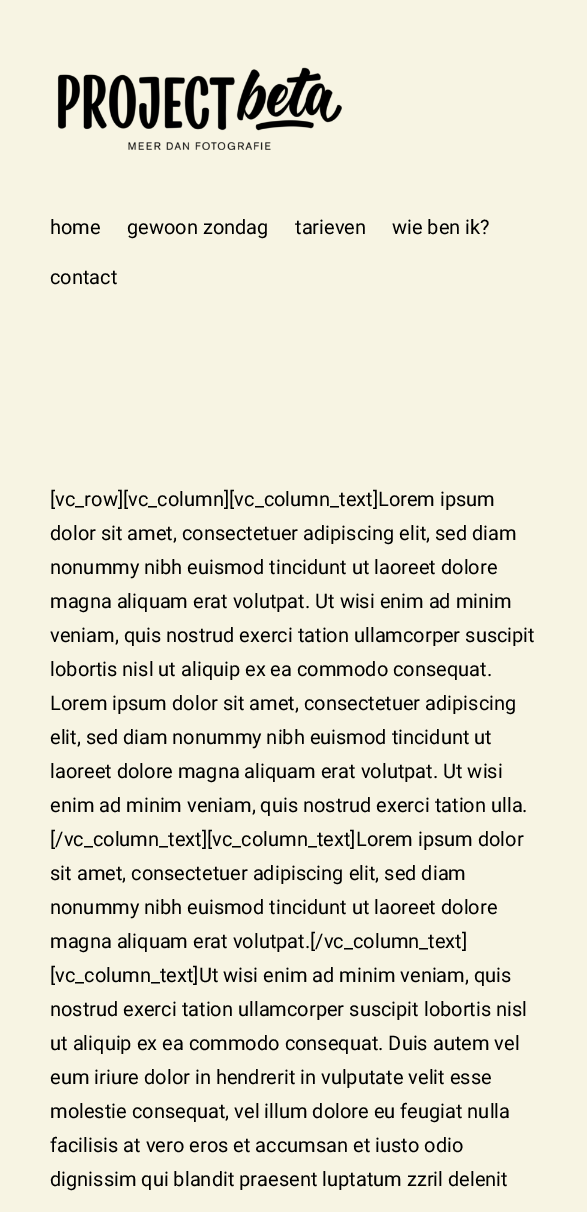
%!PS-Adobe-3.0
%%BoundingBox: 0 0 587 1212
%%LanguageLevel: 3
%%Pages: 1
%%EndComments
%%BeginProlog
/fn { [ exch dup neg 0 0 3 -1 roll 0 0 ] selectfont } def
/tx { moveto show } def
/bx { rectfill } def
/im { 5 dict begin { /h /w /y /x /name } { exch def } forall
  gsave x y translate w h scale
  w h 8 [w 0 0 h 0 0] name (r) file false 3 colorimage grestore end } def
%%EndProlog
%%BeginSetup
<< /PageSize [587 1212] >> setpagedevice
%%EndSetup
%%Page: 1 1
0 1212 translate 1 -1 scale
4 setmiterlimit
0.969 0.957 0.89 setrgbcolor
0 0 587 1212 bx
(image0.raw) 57 67 285 83 im
/Roboto-Regular 20 fn
0 setgray
(home) 50 234 tx
(gewoon zondag) 127 234 tx
(tarieven) 295 234 tx
(wie ben ik?) 392 234 tx
(contact) 50 284 tx
([vc_row][vc_column][vc_column_text]Lorem ipsum) 50 506 tx
(dolor sit amet, consectetuer adipiscing elit, sed diam) 50 540 tx
(nonummy nibh euismod tincidunt ut laoreet dolore) 50 574 tx
(magna aliquam erat volutpat. Ut wisi enim ad minim) 50 608 tx
(veniam, quis nostrud exerci tation ullamcorper suscipit) 50 642 tx
(lobortis nisl ut aliquip ex ea commodo consequat.) 50 676 tx
(Lorem ipsum dolor sit amet, consectetuer adipiscing) 50 710 tx
(elit, sed diam nonummy nibh euismod tincidunt ut) 50 744 tx
(laoreet dolore magna aliquam erat volutpat. Ut wisi) 50 778 tx
(enim ad minim veniam, quis nostrud exerci tation ulla.) 50 812 tx
([/vc_column_text][vc_column_text]Lorem ipsum dolor) 50 846 tx
(sit amet, consectetuer adipiscing elit, sed diam) 50 880 tx
(nonummy nibh euismod tincidunt ut laoreet dolore) 50 914 tx
(magna aliquam erat volutpat.[/vc_column_text]) 50 948 tx
([vc_column_text]Ut wisi enim ad minim veniam, quis) 50 982 tx
(nostrud exerci tation ullamcorper suscipit lobortis nisl) 50 1016 tx
(ut aliquip ex ea commodo consequat. Duis autem vel) 50 1050 tx
(eum iriure dolor in hendrerit in vulputate velit esse) 50 1084 tx
(molestie consequat, vel illum dolore eu feugiat nulla) 50 1118 tx
(facilisis at vero eros et accumsan et iusto odio) 50 1152 tx
(dignissim qui blandit praesent luptatum zzril delenit) 50 1186 tx
showpage
%%EOF
